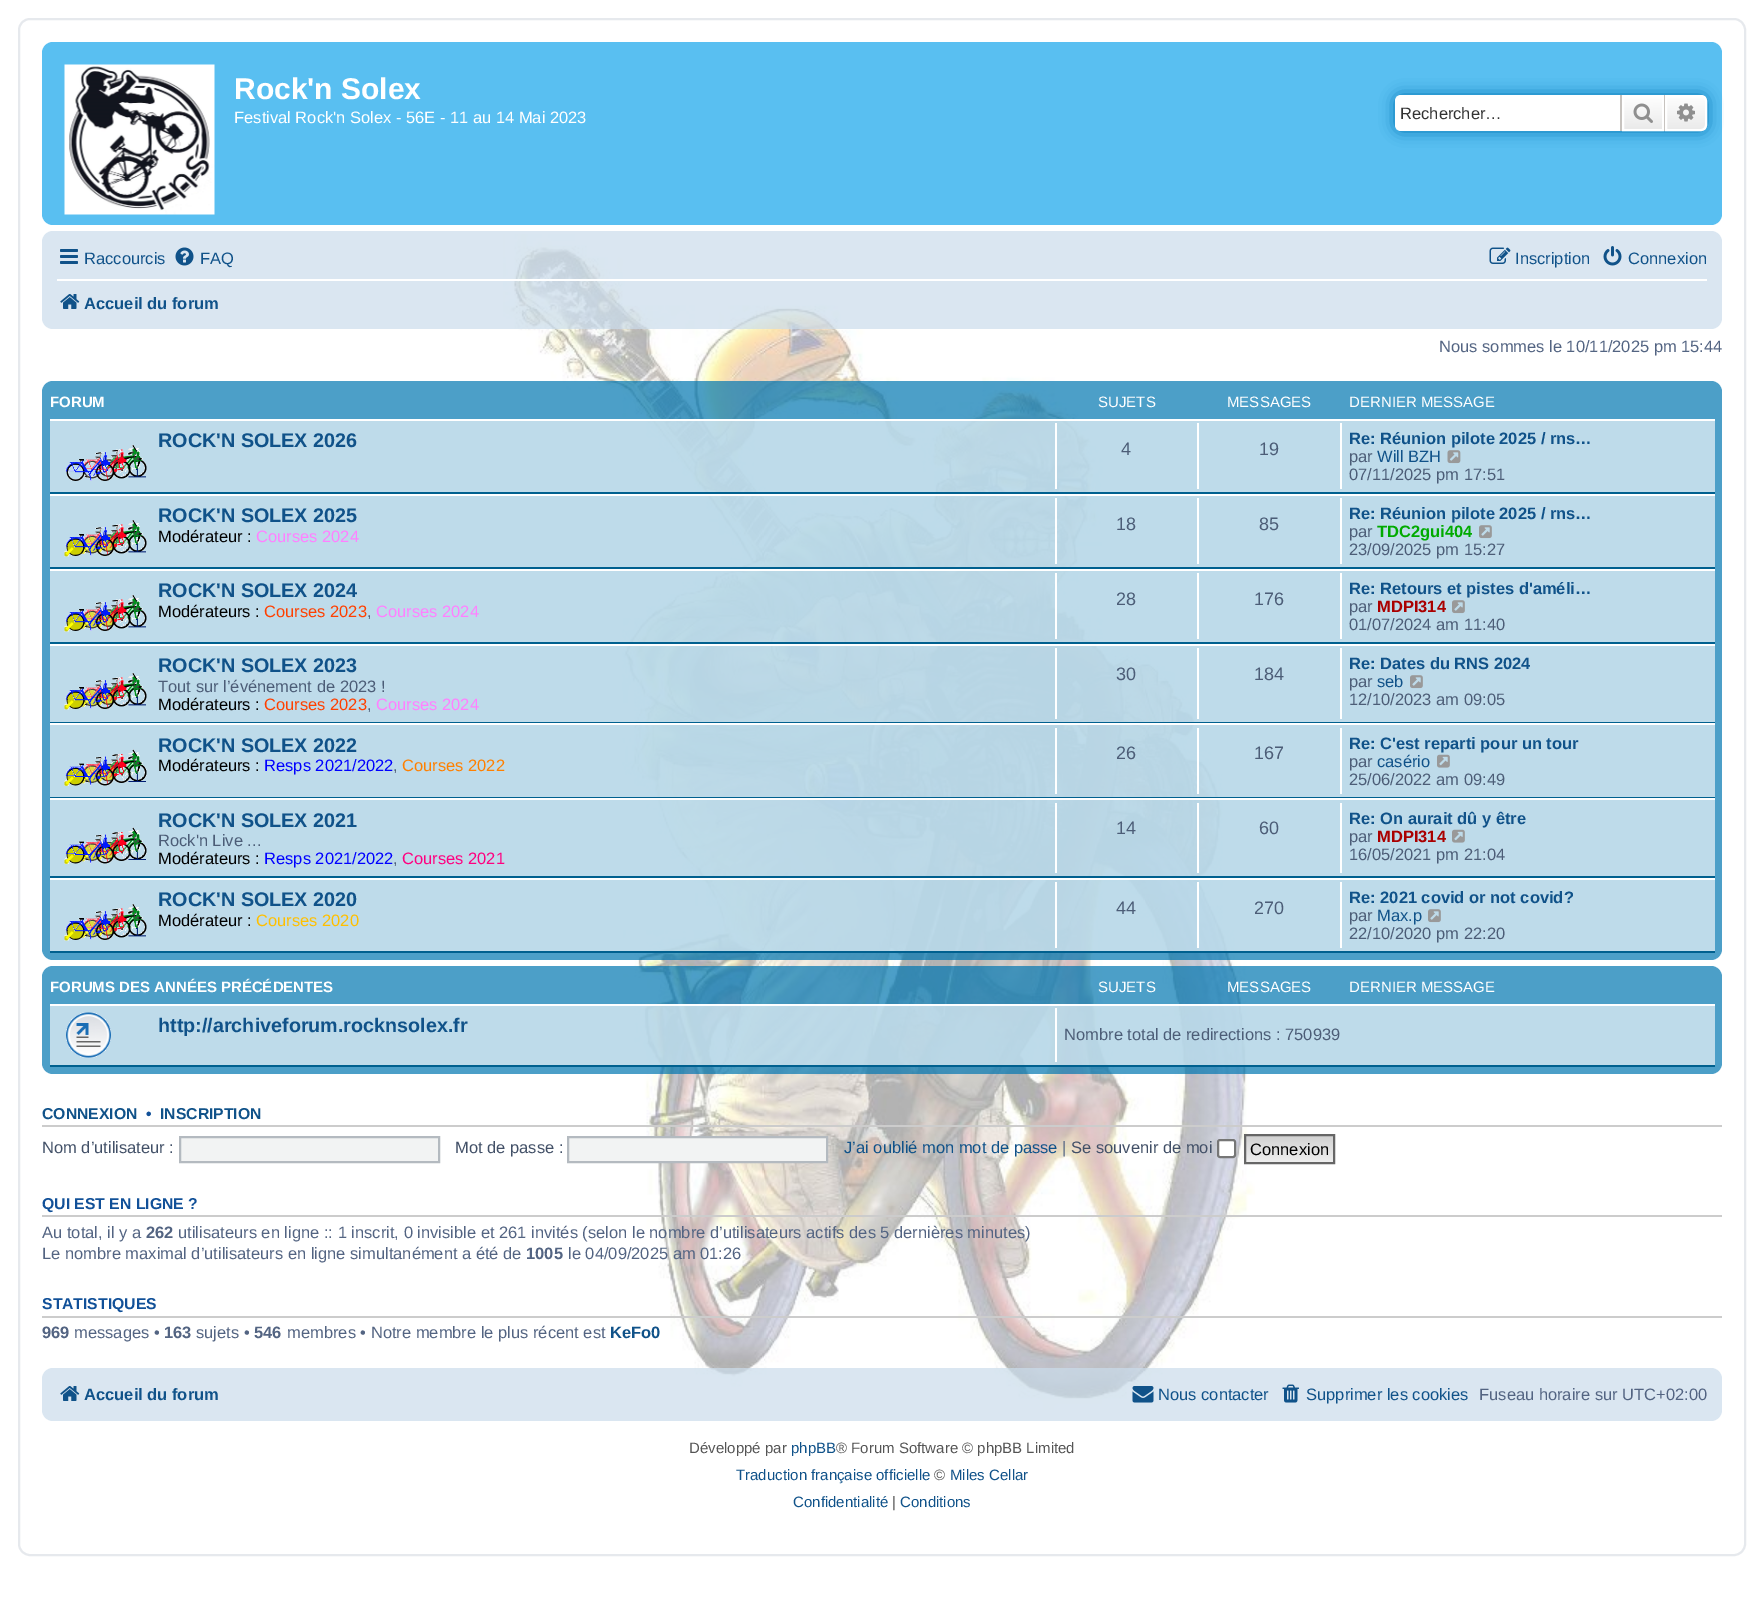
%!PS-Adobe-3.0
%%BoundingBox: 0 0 1763 1620
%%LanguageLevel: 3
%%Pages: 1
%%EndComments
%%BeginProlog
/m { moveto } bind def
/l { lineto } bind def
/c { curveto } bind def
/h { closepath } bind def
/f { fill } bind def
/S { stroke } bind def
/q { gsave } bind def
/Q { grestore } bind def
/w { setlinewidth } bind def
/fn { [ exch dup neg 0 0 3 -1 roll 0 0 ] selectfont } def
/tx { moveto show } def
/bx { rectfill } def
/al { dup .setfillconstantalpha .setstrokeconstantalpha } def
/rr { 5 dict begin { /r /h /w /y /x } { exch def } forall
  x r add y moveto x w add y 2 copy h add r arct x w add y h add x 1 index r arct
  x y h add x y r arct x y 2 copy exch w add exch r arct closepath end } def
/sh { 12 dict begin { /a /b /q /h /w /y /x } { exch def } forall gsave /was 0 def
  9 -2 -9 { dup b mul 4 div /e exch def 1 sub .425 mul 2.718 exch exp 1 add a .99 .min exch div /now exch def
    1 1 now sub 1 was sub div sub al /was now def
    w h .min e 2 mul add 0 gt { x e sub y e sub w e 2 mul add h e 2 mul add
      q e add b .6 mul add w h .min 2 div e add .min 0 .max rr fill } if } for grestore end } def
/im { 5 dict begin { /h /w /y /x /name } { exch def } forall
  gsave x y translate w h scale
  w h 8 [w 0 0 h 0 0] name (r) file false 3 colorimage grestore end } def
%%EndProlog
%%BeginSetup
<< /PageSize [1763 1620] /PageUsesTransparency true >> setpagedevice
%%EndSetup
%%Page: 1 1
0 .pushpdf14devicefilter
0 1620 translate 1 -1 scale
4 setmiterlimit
1 setgray
0 0 1763 1620 bx
(image0.raw) 503 234 752 1176 im
0.902 0.914 0.929 setrgbcolor
2 w
19 19 1726 1536 11 rr S
0.349 0.749 0.945 setrgbcolor
42 42 1680 183 11 rr f
(image1.raw) 64 64 151 151 im
/LiberationSans-Bold 30 fn
1 setgray
(Rock'n Solex) 234 99 tx
/LiberationSans-Regular 16.5 fn
(Festival Rock'n Solex - 56E - 11 au 14 Mai 2023) 234 123 tx
0 0.459 0.69 setrgbcolor
1395 95 312 36 6 7.5 1 sh
1 setgray
1401 95 m 1620 95 l 1620 131 l 1401 131 l 1397.5 131 1395 128.5 1395 125 c 1395 101 l 1395 97.5 1397.5 95 1401 95 c h f
0.2 setgray
(Rechercher…) 1400 119 tx
q 1624 97 m 1662 97 l 1662 129 l 1624 129 l h clip newpath
<< /ShadingType 2 /ColorSpace /DeviceRGB /Coords [1643 95 1643 131] /Extend [true true] /Function << /FunctionType 2 /Domain [0 1] /C0 [1 1 1] /C1 [0.914 0.914 0.914] /N 1 >> >> shfill Q
1 setgray
1623 96 40 34 rectstroke
0.78 0.765 0.749 setrgbcolor
1664 95 1 36 bx
1620 95 2 36 bx
(image2.raw) 1633 103 20 20 im
q 1666 96 m 1701 96 l 1704 96 1706 98 1706 101 c 1706 125 l 1706 128 1704 130 1701 130 c 1666 130 l h clip newpath
<< /ShadingType 2 /ColorSpace /DeviceRGB /Coords [1686 95 1686 131] /Extend [true true] /Function << /FunctionType 2 /Domain [0 1] /C0 [1 1 1] /C1 [0.914 0.914 0.914] /N 1 >> >> shfill Q
1 setgray
1666 96 m 1701 96 l 1704 96 1706 98 1706 101 c 1706 125 l 1706 128 1704 130 1701 130 c 1666 130 l h S
(image3.raw) 1677 103 18 19 im
0.7 al
0.792 0.863 0.922 setrgbcolor
42 231 1680 98 11 rr f
1 al
(image4.raw) 60 249 18 15 im
0.063 0.322 0.537 setrgbcolor
(Raccourcis) 84 264 tx
(image5.raw) 175 247 19 19 im
(FAQ) 200 264 tx
(image6.raw) 1489 247 22 17 im
(Inscription) 1515 264 tx
(image7.raw) 1603 246 19 20 im
(Connexion) 1628 264 tx
1 setgray
57 279 1650 2 bx
(image8.raw) 60 294 20 15 im
/LiberationSans-Bold 16.5 fn
0.063 0.322 0.537 setrgbcolor
(Accueil du forum) 84 309 tx
/LiberationSans-Regular 16.5 fn
0.325 0.392 0.51 setrgbcolor
(Nous sommes le 10/11/2025 pm 15:44) 1439 352 tx
0.7 al
0 0.463 0.694 setrgbcolor
42 381 1680 579 11 rr f
/LiberationSans-Bold 15 fn
1 al
1 setgray
(FORUM) 50 407 tx
/LiberationSans-Regular 15 fn
(SUJETS) 1098 407 tx
(MESSAGES) 1227 407 tx
(DERNIER MESSAGE) 1349 407 tx
0.7 al
0.933 0.961 0.976 setrgbcolor
50 421 1665 530 bx
1 al
1 setgray
50 419 1665 2 bx
0 0.376 0.561 setrgbcolor
50 492 1665 2 bx
(image9.raw) 65 445 82 36 im
/LiberationSans-Bold 19.75 fn
0.063 0.322 0.537 setrgbcolor
(ROCK'N SOLEX 2026) 158 447 tx
1 setgray
1055 423 2 66 bx
/LiberationSans-Regular 18 fn
0.298 0.365 0.467 setrgbcolor
(4) 1121 455 tx
1 setgray
1197 423 2 66 bx
0.298 0.365 0.467 setrgbcolor
(19) 1259 455 tx
1 setgray
1340 423 2 66 bx
/LiberationSans-Bold 16.5 fn
0.063 0.322 0.537 setrgbcolor
(Re: Réunion pilote 2025 / rns…) 1349 444 tx
/LiberationSans-Regular 16.5 fn
0.298 0.365 0.467 setrgbcolor
(par) 1349 462 tx
0.063 0.322 0.537 setrgbcolor
(Will BZH) 1377 462 tx
(image10.raw) 1447 450 14 14 im
0.298 0.365 0.467 setrgbcolor
(07/11/2025 pm 17:51) 1349 480 tx
1 setgray
50 494 1665 2 bx
0 0.376 0.561 setrgbcolor
50 567 1665 2 bx
(image11.raw) 64 520 83 37 im
/LiberationSans-Bold 19.75 fn
0.063 0.322 0.537 setrgbcolor
(ROCK'N SOLEX 2025) 158 522 tx
/LiberationSans-Regular 16.5 fn
0 setgray
(Modérateur :) 158 542 tx
1 0.502 1 setrgbcolor
(Courses 2024) 256 542 tx
1 setgray
1055 498 2 66 bx
/LiberationSans-Regular 18 fn
0.298 0.365 0.467 setrgbcolor
(18) 1116 530 tx
1 setgray
1197 498 2 66 bx
0.298 0.365 0.467 setrgbcolor
(85) 1259 530 tx
1 setgray
1340 498 2 66 bx
/LiberationSans-Bold 16.5 fn
0.063 0.322 0.537 setrgbcolor
(Re: Réunion pilote 2025 / rns…) 1349 519 tx
/LiberationSans-Regular 16.5 fn
0.298 0.365 0.467 setrgbcolor
(par) 1349 537 tx
/LiberationSans-Bold 16.5 fn
0 0.667 0 setrgbcolor
(TDC2gui404) 1377 537 tx
(image12.raw) 1479 525 13 14 im
/LiberationSans-Regular 16.5 fn
0.298 0.365 0.467 setrgbcolor
(23/09/2025 pm 15:27) 1349 555 tx
1 setgray
50 569 1665 2 bx
0 0.376 0.561 setrgbcolor
50 642 1665 2 bx
(image11.raw) 64 595 83 37 im
/LiberationSans-Bold 19.75 fn
0.063 0.322 0.537 setrgbcolor
(ROCK'N SOLEX 2024) 158 597 tx
/LiberationSans-Regular 16.5 fn
0 setgray
(Modérateurs :) 158 617 tx
1 0.251 0 setrgbcolor
(Courses 2023) 264 617 tx
0.298 0.365 0.467 setrgbcolor
(,) 367 617 tx
1 0.502 1 setrgbcolor
(Courses 2024) 376 617 tx
1 setgray
1055 573 2 66 bx
/LiberationSans-Regular 18 fn
0.298 0.365 0.467 setrgbcolor
(28) 1116 605 tx
1 setgray
1197 573 2 66 bx
0.298 0.365 0.467 setrgbcolor
(176) 1254 605 tx
1 setgray
1340 573 2 66 bx
/LiberationSans-Bold 16.5 fn
0.063 0.322 0.537 setrgbcolor
(Re: Retours et pistes d'améli…) 1349 594 tx
/LiberationSans-Regular 16.5 fn
0.298 0.365 0.467 setrgbcolor
(par) 1349 612 tx
/LiberationSans-Bold 16.5 fn
0.667 0 0 setrgbcolor
(MDPI314) 1377 612 tx
(image12.raw) 1452 600 13 14 im
/LiberationSans-Regular 16.5 fn
0.298 0.365 0.467 setrgbcolor
(01/07/2024 am 11:40) 1349 630 tx
1 setgray
50 644 1665 2 bx
0 0.376 0.561 setrgbcolor
50 722 1665 1 bx
(image11.raw) 64 673 83 37 im
/LiberationSans-Bold 19.75 fn
0.063 0.322 0.537 setrgbcolor
(ROCK'N SOLEX 2023) 158 672 tx
/LiberationSans-Regular 16.5 fn
0.298 0.365 0.467 setrgbcolor
(Tout sur l’événement de 2023 !) 158 692 tx
0 setgray
(Modérateurs :) 158 710 tx
1 0.251 0 setrgbcolor
(Courses 2023) 264 710 tx
0.298 0.365 0.467 setrgbcolor
(,) 367 710 tx
1 0.502 1 setrgbcolor
(Courses 2024) 376 710 tx
1 setgray
1055 648 2 71 bx
/LiberationSans-Regular 18 fn
0.298 0.365 0.467 setrgbcolor
(30) 1116 680 tx
1 setgray
1197 648 2 71 bx
0.298 0.365 0.467 setrgbcolor
(184) 1254 680 tx
1 setgray
1340 648 2 71 bx
/LiberationSans-Bold 16.5 fn
0.063 0.322 0.537 setrgbcolor
(Re: Dates du RNS 2024) 1349 669 tx
/LiberationSans-Regular 16.5 fn
0.298 0.365 0.467 setrgbcolor
(par) 1349 687 tx
0.063 0.322 0.537 setrgbcolor
(seb) 1377 687 tx
(image12.raw) 1410 675 13 14 im
0.298 0.365 0.467 setrgbcolor
(12/10/2023 am 09:05) 1349 705 tx
1 setgray
50 723 1665 2 bx
0 0.376 0.561 setrgbcolor
50 797 1665 1 bx
(image13.raw) 64 749 83 37 im
/LiberationSans-Bold 19.75 fn
0.063 0.322 0.537 setrgbcolor
(ROCK'N SOLEX 2022) 158 752 tx
/LiberationSans-Regular 16.5 fn
0 setgray
(Modérateurs :) 158 771 tx
0 0 1 setrgbcolor
(Resps 2021/2022) 264 771 tx
0.298 0.365 0.467 setrgbcolor
(,) 393 771 tx
1 0.502 0 setrgbcolor
(Courses 2022) 402 771 tx
1 setgray
1055 728 2 66 bx
/LiberationSans-Regular 18 fn
0.298 0.365 0.467 setrgbcolor
(26) 1116 759 tx
1 setgray
1197 728 2 66 bx
0.298 0.365 0.467 setrgbcolor
(167) 1254 759 tx
1 setgray
1340 728 2 66 bx
/LiberationSans-Bold 16.5 fn
0.063 0.322 0.537 setrgbcolor
(Re: C'est reparti pour un tour) 1349 749 tx
/LiberationSans-Regular 16.5 fn
0.298 0.365 0.467 setrgbcolor
(par) 1349 767 tx
0.063 0.322 0.537 setrgbcolor
(casério) 1377 767 tx
(image14.raw) 1437 754 13 14 im
0.298 0.365 0.467 setrgbcolor
(25/06/2022 am 09:49) 1349 785 tx
1 setgray
50 798 1665 2 bx
0 0.376 0.561 setrgbcolor
50 876 1665 2 bx
(image13.raw) 64 827 83 37 im
/LiberationSans-Bold 19.75 fn
0.063 0.322 0.537 setrgbcolor
(ROCK'N SOLEX 2021) 158 827 tx
/LiberationSans-Regular 16.5 fn
0.298 0.365 0.467 setrgbcolor
(Rock'n Live ...) 158 846 tx
0 setgray
(Modérateurs :) 158 864 tx
0 0 1 setrgbcolor
(Resps 2021/2022) 264 864 tx
0.298 0.365 0.467 setrgbcolor
(,) 393 864 tx
1 0 0.502 setrgbcolor
(Courses 2021) 402 864 tx
1 setgray
1055 803 2 70 bx
/LiberationSans-Regular 18 fn
0.298 0.365 0.467 setrgbcolor
(14) 1116 834 tx
1 setgray
1197 803 2 70 bx
0.298 0.365 0.467 setrgbcolor
(60) 1259 834 tx
1 setgray
1340 803 2 70 bx
/LiberationSans-Bold 16.5 fn
0.063 0.322 0.537 setrgbcolor
(Re: On aurait dû y être) 1349 824 tx
/LiberationSans-Regular 16.5 fn
0.298 0.365 0.467 setrgbcolor
(par) 1349 842 tx
/LiberationSans-Bold 16.5 fn
0.667 0 0 setrgbcolor
(MDPI314) 1377 842 tx
(image14.raw) 1452 829 13 14 im
/LiberationSans-Regular 16.5 fn
0.298 0.365 0.467 setrgbcolor
(16/05/2021 pm 21:04) 1349 860 tx
1 setgray
50 878 1665 2 bx
0 0.376 0.561 setrgbcolor
50 951 1665 2 bx
(image11.raw) 64 904 83 37 im
/LiberationSans-Bold 19.75 fn
0.063 0.322 0.537 setrgbcolor
(ROCK'N SOLEX 2020) 158 906 tx
/LiberationSans-Regular 16.5 fn
0 setgray
(Modérateur :) 158 926 tx
1 0.749 0 setrgbcolor
(Courses 2020) 256 926 tx
1 setgray
1055 882 2 66 bx
/LiberationSans-Regular 18 fn
0.298 0.365 0.467 setrgbcolor
(44) 1116 914 tx
1 setgray
1197 882 2 66 bx
0.298 0.365 0.467 setrgbcolor
(270) 1254 914 tx
1 setgray
1340 882 2 66 bx
/LiberationSans-Bold 16.5 fn
0.063 0.322 0.537 setrgbcolor
(Re: 2021 covid or not covid?) 1349 903 tx
/LiberationSans-Regular 16.5 fn
0.298 0.365 0.467 setrgbcolor
(par) 1349 921 tx
0.063 0.322 0.537 setrgbcolor
(Max.p) 1377 921 tx
(image12.raw) 1428 909 13 14 im
0.298 0.365 0.467 setrgbcolor
(22/10/2020 pm 22:20) 1349 939 tx
0.7 al
0 0.463 0.694 setrgbcolor
42 966 1680 108 11 rr f
/LiberationSans-Bold 15 fn
1 al
1 setgray
(FORUMS DES ANNÉES PRÉCÉDENTES) 50 992 tx
/LiberationSans-Regular 15 fn
(SUJETS) 1098 992 tx
(MESSAGES) 1227 992 tx
(DERNIER MESSAGE) 1349 992 tx
0.7 al
0.933 0.961 0.976 setrgbcolor
50 1006 1665 59 bx
1 al
1 setgray
50 1004 1665 2 bx
0 0.376 0.561 setrgbcolor
50 1065 1665 2 bx
(image15.raw) 66 1012 45 46 im
/LiberationSans-Bold 19.75 fn
0.063 0.322 0.537 setrgbcolor
(http://archiveforum.rocknsolex.fr) 158 1032 tx
1 setgray
1055 1008 2 54 bx
/LiberationSans-Regular 16.5 fn
0.298 0.365 0.467 setrgbcolor
(Nombre total de redirections : 750939) 1064 1040 tx
0.8 setgray
42 1125 1680 2 bx
/LiberationSans-Bold 15.75 fn
0.063 0.322 0.537 setrgbcolor
(CONNEXION) 42 1119 tx
0.067 0.314 0.596 setrgbcolor
(•) 146 1119 tx
0.063 0.322 0.537 setrgbcolor
(INSCRIPTION) 160 1119 tx
/LiberationSans-Regular 16.5 fn
0.259 0.314 0.404 setrgbcolor
(Nom d’utilisateur :) 42 1153 tx
0.949 0.953 0.953 setrgbcolor
180 1137 m 439 1137 l 439 1162 l 180 1162 l h q f Q
0.706 0.729 0.753 setrgbcolor
S
0.259 0.314 0.404 setrgbcolor
(Mot de passe :) 455 1153 tx
0.949 0.953 0.953 setrgbcolor
568 1137 m 827 1137 l 827 1162 l 568 1162 l h q f Q
0.706 0.729 0.753 setrgbcolor
S
0.063 0.322 0.537 setrgbcolor
(J’ai oublié mon mot de passe) 844 1153 tx
0.325 0.392 0.51 setrgbcolor
(|) 1062 1153 tx
0.259 0.314 0.404 setrgbcolor
(Se souvenir de moi) 1071 1153 tx
1 setgray
1218 1140 17 17 2 rr q f Q
0.463 setgray
S
q 1246 1136 m 1333 1136 l 1333 1162 l 1246 1162 l h clip newpath
<< /ShadingType 2 /ColorSpace /DeviceRGB /Coords [1289 1136 1289 1163] /Extend [true true] /Function << /FunctionType 2 /Domain [0 1] /C0 [0.824 0.824 0.824] /C1 [0.937 0.937 0.937] /N 1 >> >> shfill Q
0.4 setgray
1245 1135 89 28 rectstroke
0 setgray
(Connexion) 1250 1155 tx
0.8 setgray
42 1215 1680 2 bx
/LiberationSans-Bold 15.75 fn
0.067 0.314 0.596 setrgbcolor
(QUI EST EN LIGNE ?) 42 1209 tx
/LiberationSans-Regular 16.5 fn
0.325 0.392 0.51 setrgbcolor
(Au total, il y a) 42 1238 tx
/LiberationSans-Bold 16.5 fn
(262) 146 1238 tx
/LiberationSans-Regular 16.5 fn
(utilisateurs en ligne :: 1 inscrit, 0 invisible et 261 invités \(selon le nombre d’utilisateurs actifs des 5 dernières minutes\)) 178 1238 tx
(Le nombre maximal d’utilisateurs en ligne simultanément a été de) 42 1259 tx
/LiberationSans-Bold 16.5 fn
(1005) 526 1259 tx
/LiberationSans-Regular 16.5 fn
(le 04/09/2025 am 01:26) 568 1259 tx
0.8 setgray
42 1316 1680 2 bx
/LiberationSans-Bold 15.75 fn
0.067 0.314 0.596 setrgbcolor
(STATISTIQUES) 42 1309 tx
/LiberationSans-Bold 16.5 fn
0.325 0.392 0.51 setrgbcolor
(969) 42 1338 tx
/LiberationSans-Regular 16.5 fn
(messages •) 74 1338 tx
/LiberationSans-Bold 16.5 fn
(163) 164 1338 tx
/LiberationSans-Regular 16.5 fn
(sujets •) 196 1338 tx
/LiberationSans-Bold 16.5 fn
(546) 254 1338 tx
/LiberationSans-Regular 16.5 fn
(membres • Notre membre le plus récent est) 287 1338 tx
/LiberationSans-Bold 16.5 fn
0.063 0.322 0.537 setrgbcolor
(KeFo0) 610 1338 tx
0.7 al
0.792 0.863 0.922 setrgbcolor
42 1368 1680 53 11 rr f
1 al
(image8.raw) 60 1386 20 15 im
0.063 0.322 0.537 setrgbcolor
(Accueil du forum) 84 1400 tx
(image16.raw) 1132 1386 22 17 im
/LiberationSans-Regular 16.5 fn
(Nous contacter) 1158 1400 tx
(image17.raw) 1282 1384 17 19 im
(Supprimer les cookies) 1306 1400 tx
0.325 0.392 0.51 setrgbcolor
(Fuseau horaire sur UTC+02:00) 1479 1400 tx
/LiberationSans-Regular 15 fn
0.333 setgray
(Développé par) 689 1453 tx
0.063 0.322 0.537 setrgbcolor
(phpBB) 791 1453 tx
0.333 setgray
(® Forum Software © phpBB Limited) 836 1453 tx
0.063 0.322 0.537 setrgbcolor
(Traduction française officielle) 736 1480 tx
0.333 setgray
(©) 934 1480 tx
0.063 0.322 0.537 setrgbcolor
(Miles Cellar) 950 1480 tx
(Confidentialité) 793 1507 tx
0.333 setgray
(|) 892 1507 tx
0.063 0.322 0.537 setrgbcolor
(Conditions) 900 1507 tx
.poppdf14devicefilter showpage
%%EOF
